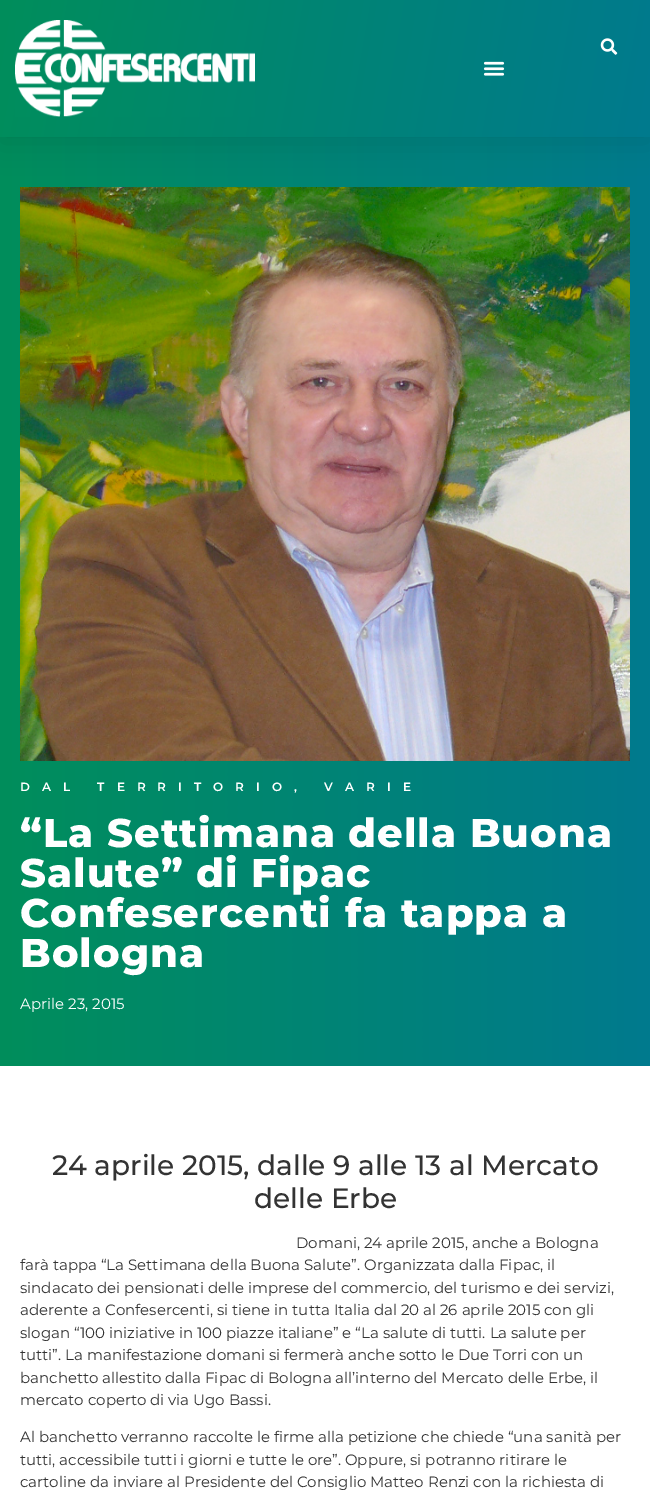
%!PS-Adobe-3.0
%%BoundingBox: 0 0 650 1491
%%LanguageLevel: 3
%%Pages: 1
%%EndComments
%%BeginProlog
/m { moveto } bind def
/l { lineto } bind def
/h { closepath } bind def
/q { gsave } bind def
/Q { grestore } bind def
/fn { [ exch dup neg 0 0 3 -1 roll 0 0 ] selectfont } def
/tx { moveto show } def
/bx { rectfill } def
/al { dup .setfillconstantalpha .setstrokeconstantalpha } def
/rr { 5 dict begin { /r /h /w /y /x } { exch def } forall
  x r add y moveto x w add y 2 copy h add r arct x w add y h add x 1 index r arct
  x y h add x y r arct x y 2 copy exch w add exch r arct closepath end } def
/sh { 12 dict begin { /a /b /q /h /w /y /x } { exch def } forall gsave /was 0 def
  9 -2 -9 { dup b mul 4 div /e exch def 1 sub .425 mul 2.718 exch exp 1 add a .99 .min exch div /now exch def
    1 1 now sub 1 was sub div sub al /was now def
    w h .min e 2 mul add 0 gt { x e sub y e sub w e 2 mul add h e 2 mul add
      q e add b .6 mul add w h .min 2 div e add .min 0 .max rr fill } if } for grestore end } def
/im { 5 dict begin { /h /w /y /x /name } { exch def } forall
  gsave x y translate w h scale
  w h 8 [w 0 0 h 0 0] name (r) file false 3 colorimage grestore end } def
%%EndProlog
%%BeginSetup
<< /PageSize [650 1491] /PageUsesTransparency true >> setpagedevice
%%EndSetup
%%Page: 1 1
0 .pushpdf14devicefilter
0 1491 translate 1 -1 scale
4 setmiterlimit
1 setgray
0 0 650 1491 bx
q 0 137 m 650 137 l 650 1066 l 0 1066 l h clip newpath
<< /ShadingType 2 /ColorSpace /DeviceRGB /Coords [0 602 650 602] /Extend [true true] /Function << /FunctionType 2 /Domain [0 1] /C0 [0 0.557 0.357] /C1 [0 0.478 0.557] /N 1 >> >> shfill Q
(image3.raw) 20 187 610 574 im
0 setgray
0 5 650 137 0 15 0.1 sh
q 0 0 m 650 0 l 650 137 l 0 137 l h clip newpath
<< /ShadingType 2 /ColorSpace /DeviceRGB /Coords [-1.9 11 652 126] /Extend [true true] /Function << /FunctionType 2 /Domain [0 1] /C0 [0 0.557 0.357] /C1 [0 0.478 0.557] /N 1 >> >> shfill Q
(image0.raw) 15 20 240 97 im
(image1.raw) 600 38 18 17 im
(image2.raw) 483 61 22 15 im
/Montserrat-SemiBold 12 fn
1 setgray
20 791 m 12 0 (DAL TERRITORIO, VARIE) ashow
/Montserrat-ExtraBold 40 fn
20 847 m 1 0 (“La Settimana della Buona) ashow
20 887 m 1 0 (Salute” di Fipac) ashow
20 927 m 1 0 (Confesercenti fa tappa a) ashow
20 967 m 1 0 (Bologna) ashow
/Montserrat-Regular 15 fn
(Aprile 23, 2015) 20 1009 tx
/Montserrat-Medium 28 fn
0.2 setgray
(24 aprile 2015, dalle 9 alle 13 al Mercato) 52 1175 tx
(delle Erbe) 254 1208 tx
/Montserrat-Regular 15 fn
(Domani, 24 aprile 2015, anche a Bologna) 296 1248 tx
(farà tappa “La Settimana della Buona Salute”. Organizzata dalla Fipac, il) 20 1270 tx
(sindacato dei pensionati delle imprese del commercio, del turismo e dei servizi,) 20 1293 tx
(aderente a Confesercenti, si tiene in tutta Italia dal 20 al 26 aprile 2015 con gli) 20 1315 tx
(slogan “100 iniziative in 100 piazze italiane” e “La salute di tutti. La salute per) 20 1338 tx
(tutti”. La manifestazione domani si fermerà anche sotto le Due Torri con un) 20 1360 tx
(banchetto allestito dalla Fipac di Bologna all’interno del Mercato delle Erbe, il) 20 1383 tx
(mercato coperto di via Ugo Bassi.) 20 1405 tx
(Al banchetto verranno raccolte le firme alla petizione che chiede “una sanità per) 20 1442 tx
(tutti, accessibile tutti i giorni e tutte le ore”. Oppure, si potranno ritirare le) 20 1465 tx
(cartoline da inviare al Presidente del Consiglio Matteo Renzi con la richiesta di) 20 1487 tx
.poppdf14devicefilter showpage
%%EOF
